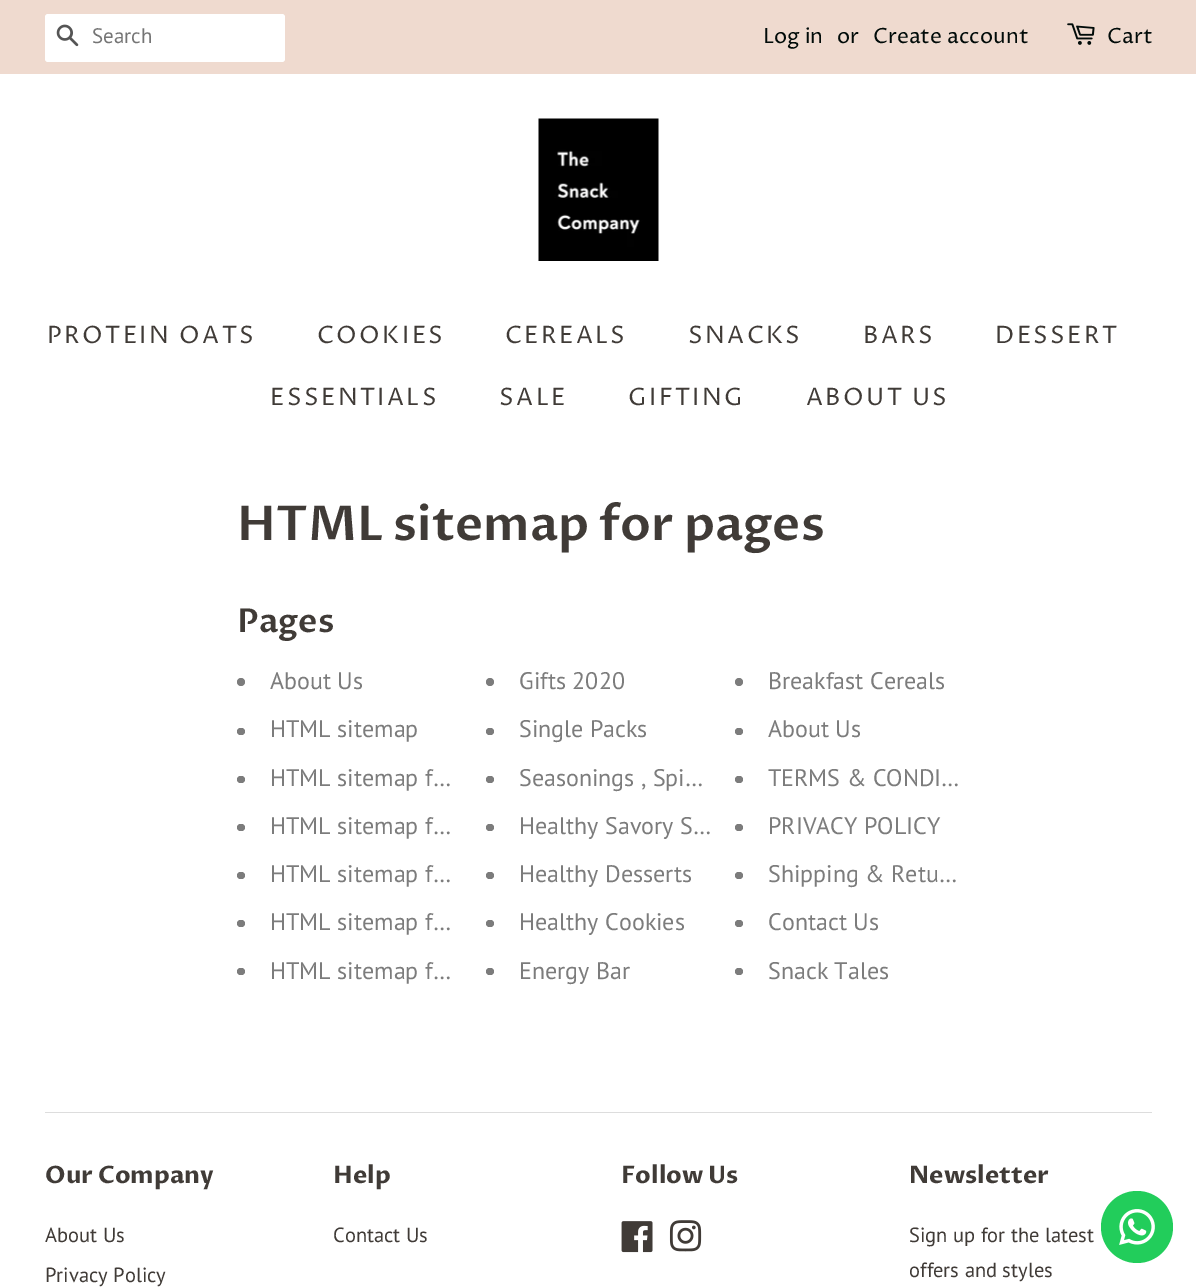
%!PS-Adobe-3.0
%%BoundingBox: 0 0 1196 1287
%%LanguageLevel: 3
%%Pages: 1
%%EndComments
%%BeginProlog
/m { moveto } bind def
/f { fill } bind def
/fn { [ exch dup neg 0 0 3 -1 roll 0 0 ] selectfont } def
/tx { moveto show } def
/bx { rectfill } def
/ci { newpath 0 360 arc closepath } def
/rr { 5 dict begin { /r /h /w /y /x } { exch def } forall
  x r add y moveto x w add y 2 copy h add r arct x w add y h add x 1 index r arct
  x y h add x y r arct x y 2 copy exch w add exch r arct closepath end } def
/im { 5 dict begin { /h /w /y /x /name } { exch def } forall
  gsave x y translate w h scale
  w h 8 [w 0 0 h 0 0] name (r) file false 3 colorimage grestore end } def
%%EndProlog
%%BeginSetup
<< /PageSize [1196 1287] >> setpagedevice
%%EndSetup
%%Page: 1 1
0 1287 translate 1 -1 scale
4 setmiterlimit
1 setgray
0 0 1196 1287 bx
0.937 0.855 0.812 setrgbcolor
0 0 1196 74 bx
1 setgray
45 14 240 48 3 rr f
(image0.raw) 56 24 23 23 im
/PTSans-Regular 21 fn
0.459 setgray
(Search) 92 43 tx
/ProzaLibre-Regular 21 fn
0.004 0.043 0.035 setrgbcolor
(Log in) 763 43 tx
(or) 837 43 tx
(Create account) 873 43 tx
(image1.raw) 1067 23 28 22 im
(Cart) 1107 43 tx
(image2.raw) 538 118 121 143 im
/ProzaLibre-Regular 24 fn
0.251 0.231 0.216 setrgbcolor
47 343 m 2.4 0 (PROTEIN OATS) ashow
317 343 m 2.4 0 (COOKIES) ashow
505 343 m 2.4 0 (CEREALS) ashow
688 343 m 2.4 0 (SNACKS) ashow
863 343 m 2.4 0 (BARS) ashow
995 343 m 2.4 0 (DESSERT) ashow
270 405 m 2.4 0 (ESSENTIALS) ashow
499 405 m 2.4 0 (SALE) ashow
628 405 m 2.4 0 (GIFTING) ashow
806 405 m 2.4 0 (ABOUT US) ashow
/ProzaLibre-SemiBold 48 fn
(HTML sitemap for pages) 237 540 tx
/ProzaLibre-SemiBold 33 fn
(Pages) 237 632 tx
0.486 setgray
241 682 4 ci f
/PTSans-Regular 24 fn
(About Us) 270 689 tx
490 682 4 ci f
(Gifts 2020) 519 689 tx
739 682 4 ci f
(Breakfast Cereals) 768 689 tx
237 728 8 7 3.5 rr f
(HTML sitemap) 270 737 tx
486 728 8 7 3.5 rr f
(Single Packs) 519 737 tx
735 728 8 7 3.5 rr f
(About Us) 768 737 tx
237 776 8 7 3.5 rr f
(HTML sitemap f…) 270 786 tx
486 776 8 7 3.5 rr f
(Seasonings , Spi…) 519 786 tx
735 776 8 7 3.5 rr f
(TERMS & CONDI…) 768 786 tx
237 824 8 7 3.5 rr f
(HTML sitemap f…) 270 834 tx
486 824 8 7 3.5 rr f
(Healthy Savory S…) 519 834 tx
735 824 8 7 3.5 rr f
(PRIVACY POLICY) 768 834 tx
237 872 8 7 3.5 rr f
(HTML sitemap f…) 270 882 tx
486 872 8 7 3.5 rr f
(Healthy Desserts) 519 882 tx
735 872 8 7 3.5 rr f
(Shipping & Retu…) 768 882 tx
237 920 8 7 3.5 rr f
(HTML sitemap f…) 270 930 tx
486 920 8 7 3.5 rr f
(Healthy Cookies) 519 930 tx
735 920 8 7 3.5 rr f
(Contact Us) 768 930 tx
237 968 8 7 3.5 rr f
(HTML sitemap f…) 270 979 tx
486 968 8 7 3.5 rr f
(Energy Bar) 519 979 tx
735 968 8 7 3.5 rr f
(Snack Tales) 768 979 tx
0.867 setgray
45 1112 1107 1 bx
/ProzaLibre-Bold 24 fn
0.251 0.231 0.216 setrgbcolor
(Our Company) 45 1183 tx
/PTSans-Regular 20.5 fn
(About Us) 45 1242 tx
(Privacy Policy) 45 1282 tx
/ProzaLibre-Bold 24 fn
(Help) 333 1183 tx
/PTSans-Regular 20.5 fn
(Contact Us) 333 1242 tx
/ProzaLibre-Bold 24 fn
(Follow Us) 621 1183 tx
(image3.raw) 621 1221 32 32 im
(image4.raw) 669 1220 33 32 im
(Newsletter) 909 1183 tx
/PTSans-Regular 20.5 fn
(Sign up for the latest) 909 1242 tx
(offers and styles) 909 1277 tx
0.133 0.804 0.357 setrgbcolor
1137 1227 36 ci f
(image5.raw) 1119 1209 36 36 im
showpage
%%EOF
